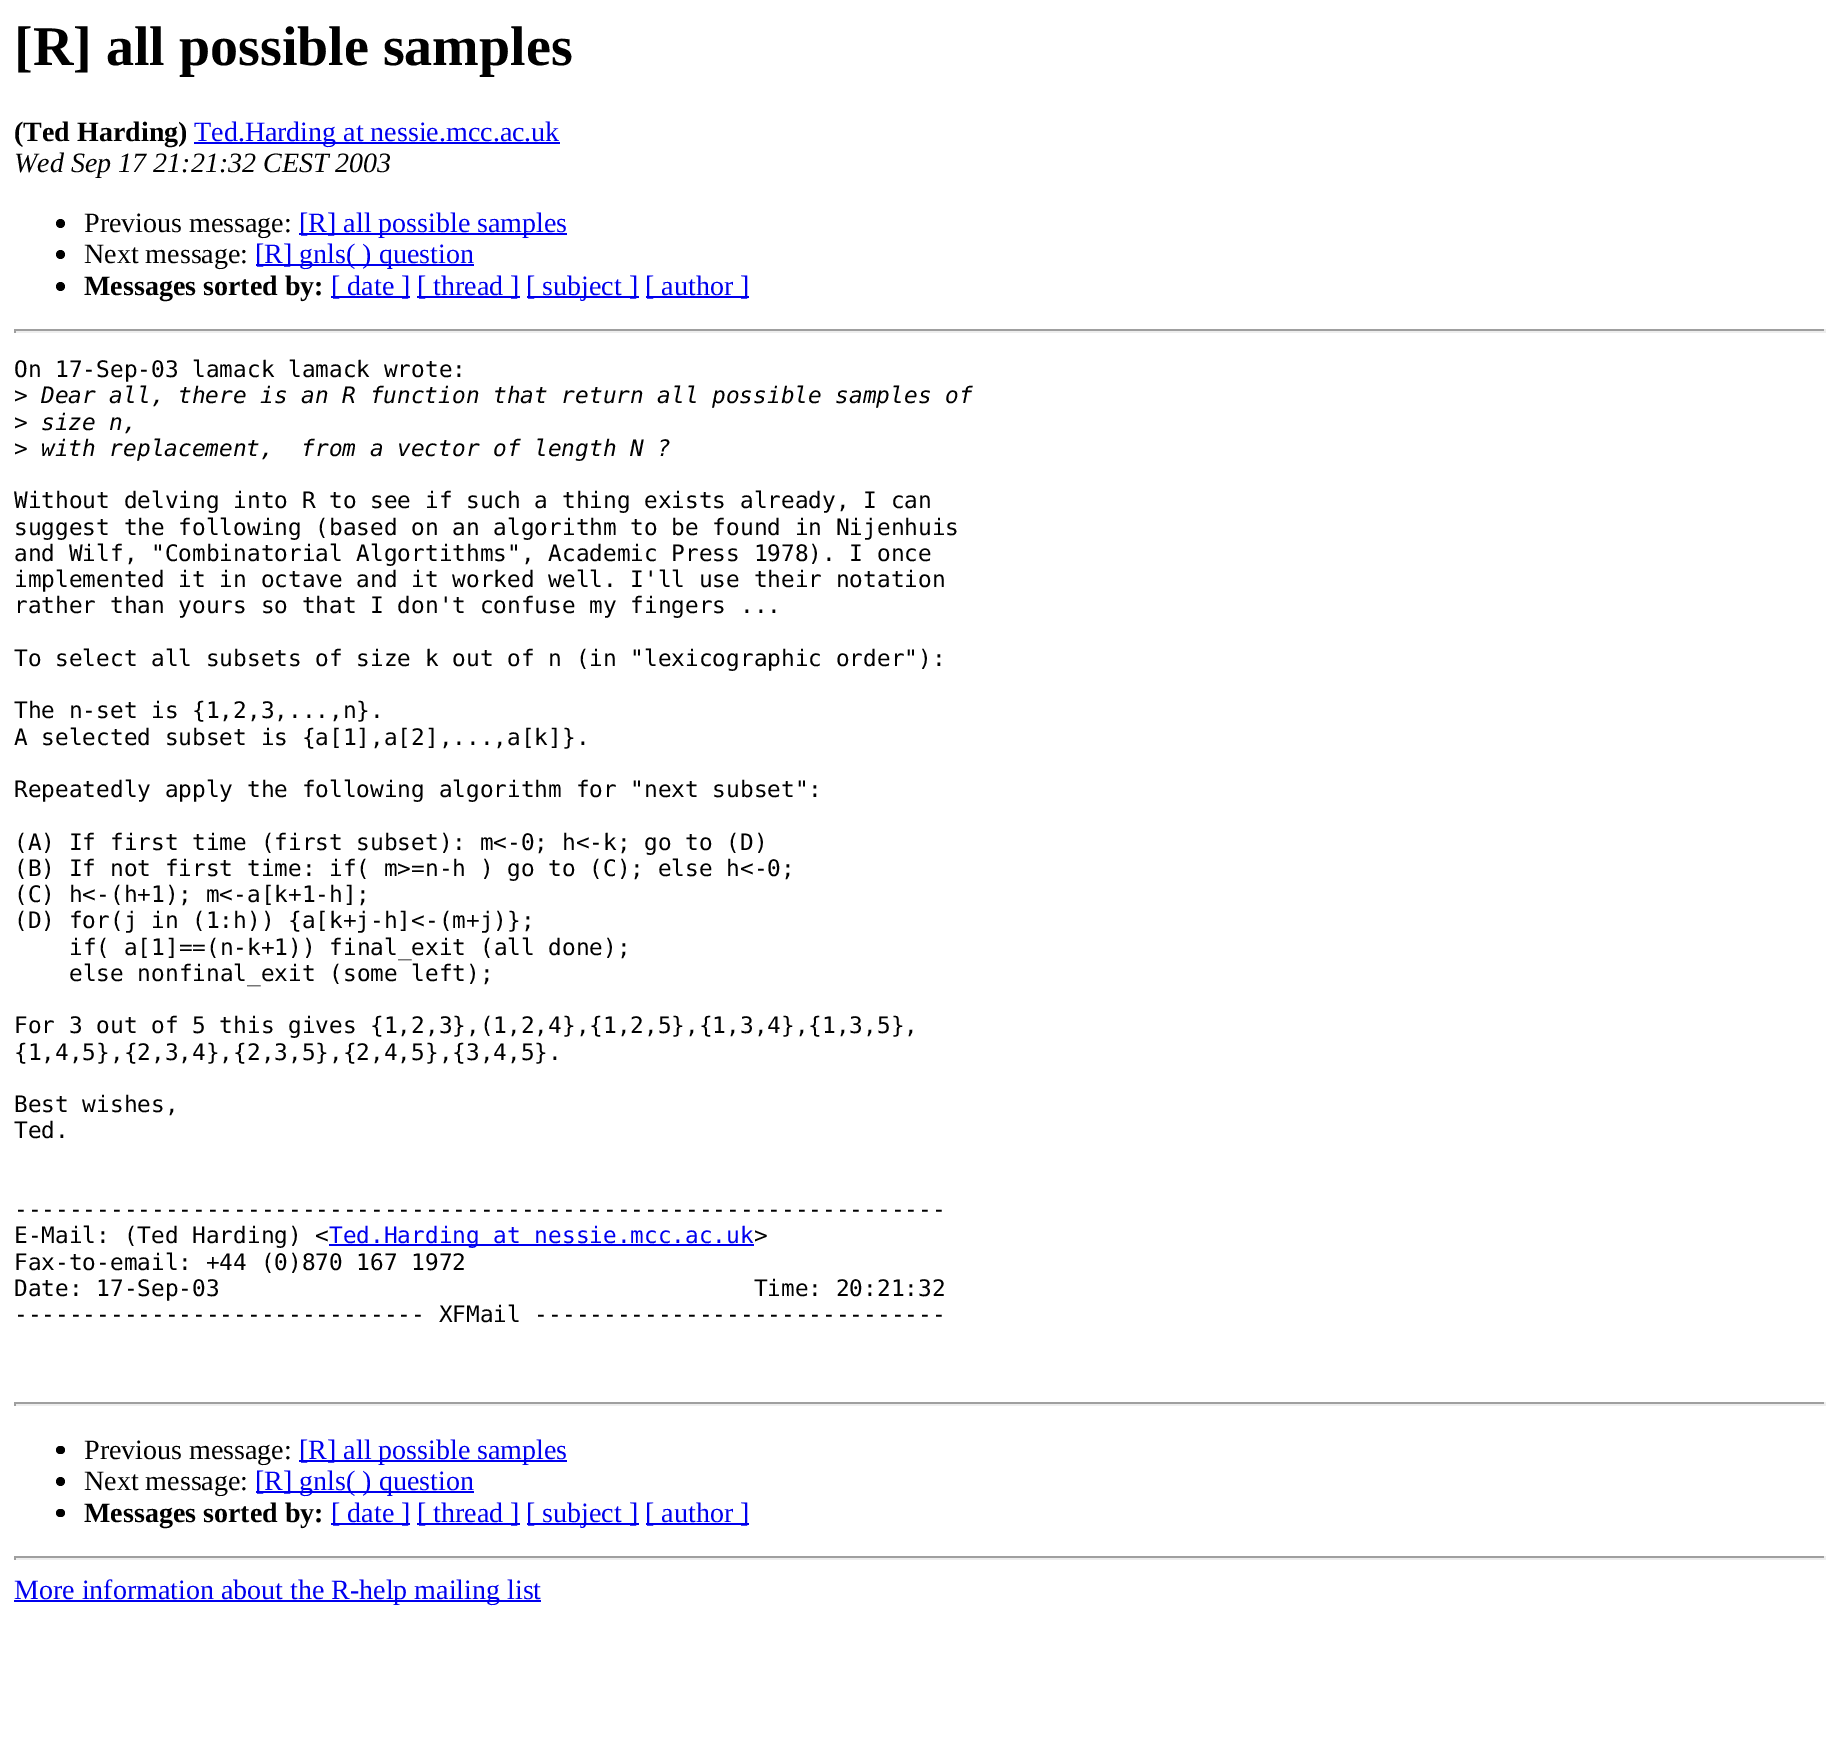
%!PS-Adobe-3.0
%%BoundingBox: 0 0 1838 1755
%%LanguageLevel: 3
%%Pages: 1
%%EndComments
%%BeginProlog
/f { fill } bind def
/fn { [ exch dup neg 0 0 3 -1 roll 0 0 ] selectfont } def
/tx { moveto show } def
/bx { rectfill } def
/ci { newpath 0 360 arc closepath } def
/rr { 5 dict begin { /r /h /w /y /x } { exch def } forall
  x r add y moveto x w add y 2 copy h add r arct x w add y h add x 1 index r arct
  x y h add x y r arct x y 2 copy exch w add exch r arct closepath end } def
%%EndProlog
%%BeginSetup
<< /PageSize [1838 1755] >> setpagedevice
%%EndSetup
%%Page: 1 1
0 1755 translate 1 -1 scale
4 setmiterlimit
1 setgray
0 0 1838 1755 bx
/LiberationSerif-Bold 56 fn
0 setgray
([R] all possible samples) 14 65 tx
/LiberationSerif-Bold 28 fn
(\(Ted Harding\)) 14 141 tx
0 0 0.933 setrgbcolor
194 142 366 2 bx
/LiberationSerif-Regular 28 fn
(Ted.Harding at nessie.mcc.ac.uk) 194 141 tx
/LiberationSerif-Italic 28 fn
0 setgray
(Wed Sep 17 21:21:32 CEST 2003) 14 172 tx
60.5 223.5 4.5 ci f
/LiberationSerif-Regular 28 fn
(Previous message:) 84 232 tx
0 0 0.933 setrgbcolor
299 233 268 2 bx
([R] all possible samples) 299 232 tx
0 setgray
60.5 254.5 4.5 ci f
(Next message:) 84 263 tx
0 0 0.933 setrgbcolor
256 264 218 2 bx
([R] gnls\( \) question) 255 263 tx
0 setgray
60.5 286.5 4.5 ci f
/LiberationSerif-Bold 28 fn
(Messages sorted by:) 84 295 tx
0 0 0.933 setrgbcolor
331 296 79 2 bx
/LiberationSerif-Regular 28 fn
([ date ]) 331 295 tx
417 296 103 2 bx
([ thread ]) 417 295 tx
527 296 112 2 bx
([ subject ]) 526 295 tx
646 296 103 2 bx
([ author ]) 645 295 tx
0.624 setgray
14 329 1811 2 bx
0.933 setgray
1824 329 2 4 bx
14 331 1811 2 bx
0.624 setgray
14 329 2 4 bx
/DejaVuSansMono-Regular 22.75 fn
0 setgray
(On 17-Sep-03 lamack lamack wrote:) 14 377 tx
(>) 14 403 tx
/DejaVuSansMono-Italic 22.75 fn
(Dear all, there is an R function that return all possible samples of) 41 403 tx
/DejaVuSansMono-Regular 22.75 fn
(>) 14 430 tx
/DejaVuSansMono-Italic 22.75 fn
(size n,) 41 430 tx
/DejaVuSansMono-Regular 22.75 fn
(>) 14 456 tx
/DejaVuSansMono-Italic 22.75 fn
(with replacement,  from a vector of length N ?) 41 456 tx
/DejaVuSansMono-Regular 22.75 fn
(Without delving into R to see if such a thing exists already, I can) 14 508 tx
(suggest the following \(based on an algorithm to be found in Nijenhuis) 14 535 tx
(and Wilf, "Combinatorial Algortithms", Academic Press 1978\). I once) 14 561 tx
(implemented it in octave and it worked well. I'll use their notation) 14 587 tx
(rather than yours so that I don't confuse my fingers ...) 14 613 tx
(To select all subsets of size k out of n \(in "lexicographic order"\):) 14 666 tx
(The n-set is {1,2,3,...,n}.) 14 718 tx
(A selected subset is {a[1],a[2],...,a[k]}.) 14 745 tx
(Repeatedly apply the following algorithm for "next subset":) 14 797 tx
(\(A\) If first time \(first subset\): m<-0; h<-k; go to \(D\)) 14 850 tx
(\(B\) If not first time: if\( m>=n-h \) go to \(C\); else h<-0;) 14 876 tx
(\(C\) h<-\(h+1\); m<-a[k+1-h];) 14 902 tx
(\(D\) for\(j in \(1:h\)\) {a[k+j-h]<-\(m+j\)};) 14 928 tx
(if\( a[1]==\(n-k+1\)\) final_exit \(all done\);) 69 955 tx
(else nonfinal_exit \(some left\);) 69 981 tx
(For 3 out of 5 this gives {1,2,3},\(1,2,4},{1,2,5},{1,3,4},{1,3,5},) 14 1033 tx
({1,4,5},{2,3,4},{2,3,5},{2,4,5},{3,4,5}.) 14 1060 tx
(Best wishes,) 14 1112 tx
(Ted.) 14 1138 tx
(--------------------------------------------------------------------) 14 1217 tx
(E-Mail: \(Ted Harding\) <) 14 1243 tx
0 0 0.933 setrgbcolor
329 1244 425 2 bx
(Ted.Harding at nessie.mcc.ac.uk) 329 1243 tx
0 setgray
(>) 754 1243 tx
(Fax-to-email: +44 \(0\)870 167 1972) 14 1270 tx
(Date: 17-Sep-03                                       Time: 20:21:32) 14 1296 tx
(------------------------------ XFMail ------------------------------) 14 1322 tx
0.624 setgray
14 1402 1811 2 bx
0.933 setgray
1824 1402 2 4 bx
14 1404 1811 2 bx
0.624 setgray
14 1402 2 4 bx
0 setgray
56 1446 9 8 4 rr f
/LiberationSerif-Regular 28 fn
(Previous message:) 84 1459 tx
0 0 0.933 setrgbcolor
299 1460 268 2 bx
([R] all possible samples) 299 1459 tx
0 setgray
60.5 1481.5 4.5 ci f
(Next message:) 84 1490 tx
0 0 0.933 setrgbcolor
256 1491 218 2 bx
([R] gnls\( \) question) 255 1490 tx
0 setgray
56 1509 9 8 4 rr f
/LiberationSerif-Bold 28 fn
(Messages sorted by:) 84 1522 tx
0 0 0.933 setrgbcolor
331 1523 79 2 bx
/LiberationSerif-Regular 28 fn
([ date ]) 331 1522 tx
417 1523 103 2 bx
([ thread ]) 417 1522 tx
527 1523 112 2 bx
([ subject ]) 526 1522 tx
646 1523 103 2 bx
([ author ]) 645 1522 tx
0.624 setgray
14 1556 1811 2 bx
0.933 setgray
1824 1556 2 4 bx
14 1558 1811 2 bx
0.624 setgray
14 1556 2 4 bx
0 0 0.933 setrgbcolor
14 1600 527 2 bx
(More information about the R-help mailing list) 14 1599 tx
showpage
%%EOF
